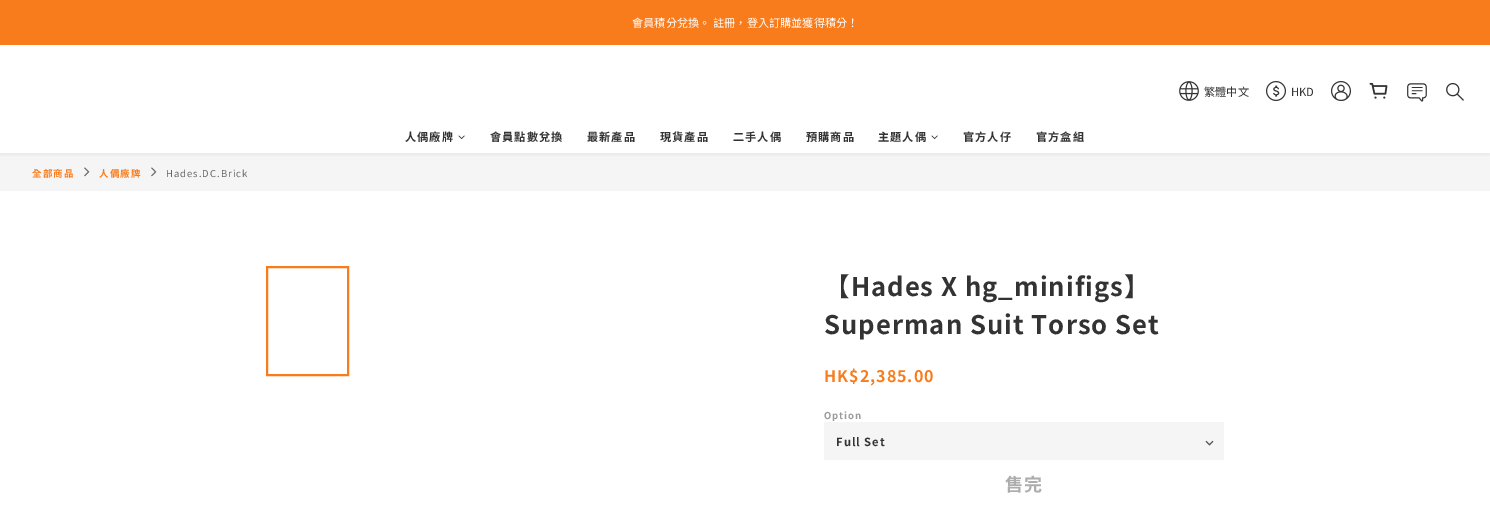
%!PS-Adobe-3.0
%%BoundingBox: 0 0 1490 505
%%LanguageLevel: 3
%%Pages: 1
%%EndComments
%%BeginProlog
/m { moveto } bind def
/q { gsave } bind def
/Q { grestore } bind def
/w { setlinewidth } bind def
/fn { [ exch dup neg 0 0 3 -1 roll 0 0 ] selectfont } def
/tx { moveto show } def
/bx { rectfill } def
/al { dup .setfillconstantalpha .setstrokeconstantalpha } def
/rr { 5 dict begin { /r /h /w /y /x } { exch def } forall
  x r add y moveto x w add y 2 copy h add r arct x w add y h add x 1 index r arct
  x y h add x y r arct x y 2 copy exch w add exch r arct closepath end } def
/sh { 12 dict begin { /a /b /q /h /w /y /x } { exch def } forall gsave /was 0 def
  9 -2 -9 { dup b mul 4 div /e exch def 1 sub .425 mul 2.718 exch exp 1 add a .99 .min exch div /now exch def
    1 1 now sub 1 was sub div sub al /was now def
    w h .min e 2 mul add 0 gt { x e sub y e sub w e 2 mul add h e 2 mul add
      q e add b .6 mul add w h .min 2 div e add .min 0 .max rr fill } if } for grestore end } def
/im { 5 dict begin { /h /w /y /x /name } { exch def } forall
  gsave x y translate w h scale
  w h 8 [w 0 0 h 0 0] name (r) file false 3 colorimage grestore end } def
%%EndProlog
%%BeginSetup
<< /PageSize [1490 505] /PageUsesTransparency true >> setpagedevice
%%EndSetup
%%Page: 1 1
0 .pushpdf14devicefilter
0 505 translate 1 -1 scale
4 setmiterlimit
1 setgray
0 0 1490 505 bx
0.961 setgray
824 422 400 38 bx
0.973 0.486 0.11 setrgbcolor
0 0 1490 45 bx
/NotoSansTC-Regular 11.2 fn
1 setgray
(會員積分兌換。 註冊，登入訂購並獲得積分！) 632 27 tx
0.961 setgray
0 153 1490 38 bx
q
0 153 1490 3 rectclip
0 setgray
0 47 1490 108 0 3 0.06 sh
Q
(image0.raw) 1179 81 20 20 im
0.2 setgray
(繁體中文) 1204 96 tx
(image1.raw) 1266 81 20 20 im
(HKD) 1291 96 tx
(image2.raw) 1331 81 20 20 im
(image3.raw) 1369 82 19 17 im
(image4.raw) 1407 83 20 19 im
(image5.raw) 1446 82 18 19 im
/NotoSansTC-Bold 11.2 fn
405 141 m 1 0 (人偶廠牌) ashow
(image6.raw) 458 135 7 5 im
490 141 m 1 0 (會員點數兌換) ashow
587 141 m 1 0 (最新產品) ashow
660 141 m 1 0 (現貨產品) ashow
733 141 m 1 0 (二手人偶) ashow
806 141 m 1 0 (預購商品) ashow
878 141 m 1 0 (主題人偶) ashow
(image6.raw) 931 135 7 5 im
963 141 m 1 0 (官方人仔) ashow
1036 141 m 1 0 (官方盒組) ashow
/NotoSansTC-Bold 9.5 fn
0.973 0.486 0.11 setrgbcolor
32 177 m 1 0 (全部商品) ashow
(image7.raw) 84 167 6 10 im
99 177 m 1 0 (人偶廠牌) ashow
(image7.raw) 151 167 6 10 im
/NotoSansTC-Regular 9.5 fn
0.4 setgray
166 177 m 1 0 (Hades.DC.Brick) ashow
0.973 0.486 0.11 setrgbcolor
2 w
267 267 81 108 rectstroke
/NotoSansTC-Bold 25.6 fn
0.2 setgray
824 296 m 1 0 (【Hades X hg_minifigs】) ashow
824 334 m 1 0 (Superman Suit Torso Set) ashow
/NotoSansTC-Bold 16 fn
0.973 0.486 0.11 setrgbcolor
824 382 m 1 0 (HK$2,385.00) ashow
/NotoSansTC-Bold 9.5 fn
0.6 setgray
824 419 m 1 0 (Option) ashow
/NotoSansTC-Bold 11.2 fn
0.2 setgray
836 446 m 1 0 (Full Set) ashow
(image8.raw) 1205 440 9 6 im
/NotoSansTC-Bold 18 fn
0.678 setgray
1005 491 m 1 0 (售完) ashow
.poppdf14devicefilter showpage
%%EOF
